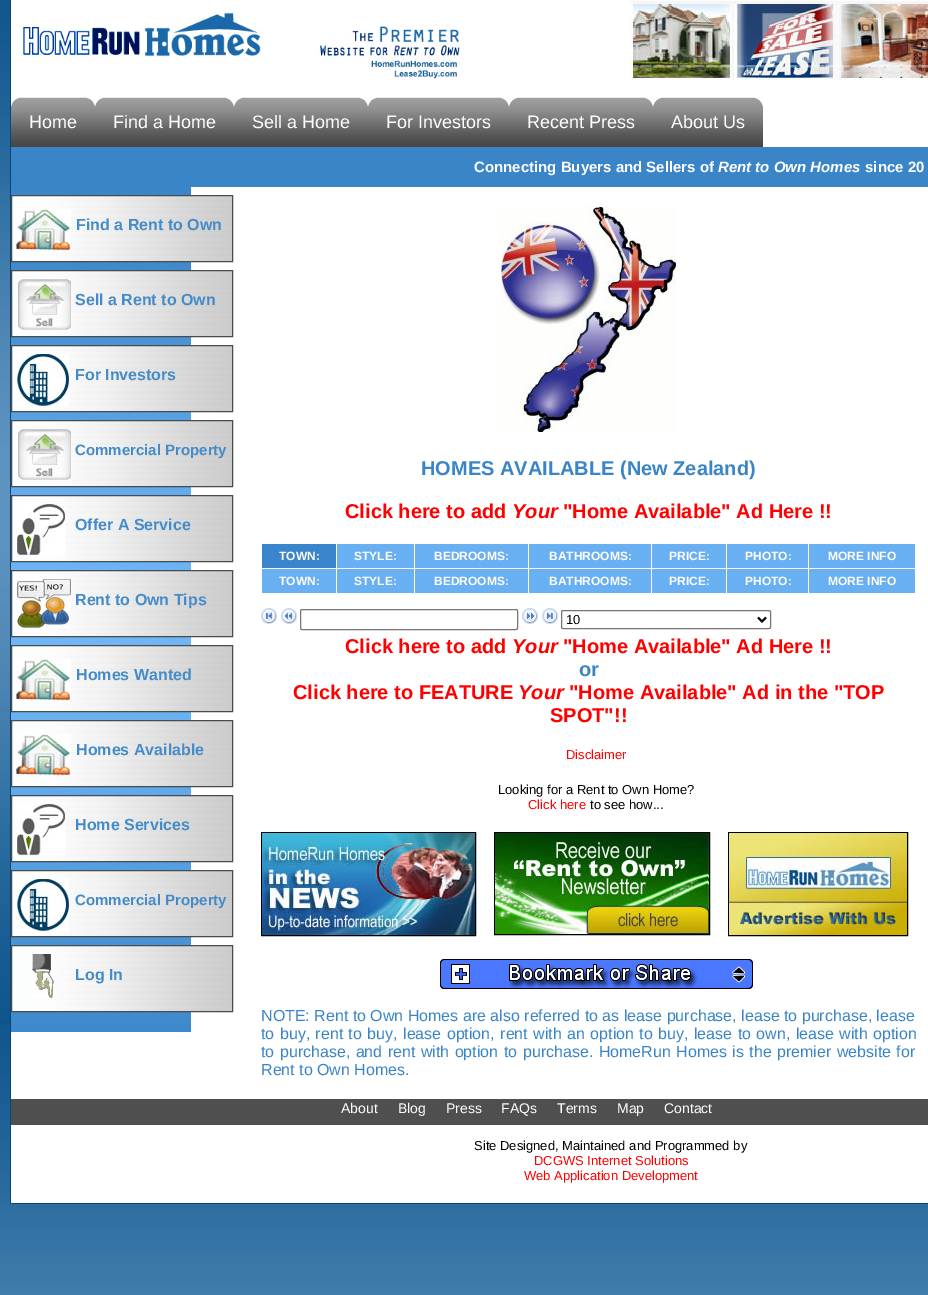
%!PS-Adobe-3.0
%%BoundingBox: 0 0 928 1295
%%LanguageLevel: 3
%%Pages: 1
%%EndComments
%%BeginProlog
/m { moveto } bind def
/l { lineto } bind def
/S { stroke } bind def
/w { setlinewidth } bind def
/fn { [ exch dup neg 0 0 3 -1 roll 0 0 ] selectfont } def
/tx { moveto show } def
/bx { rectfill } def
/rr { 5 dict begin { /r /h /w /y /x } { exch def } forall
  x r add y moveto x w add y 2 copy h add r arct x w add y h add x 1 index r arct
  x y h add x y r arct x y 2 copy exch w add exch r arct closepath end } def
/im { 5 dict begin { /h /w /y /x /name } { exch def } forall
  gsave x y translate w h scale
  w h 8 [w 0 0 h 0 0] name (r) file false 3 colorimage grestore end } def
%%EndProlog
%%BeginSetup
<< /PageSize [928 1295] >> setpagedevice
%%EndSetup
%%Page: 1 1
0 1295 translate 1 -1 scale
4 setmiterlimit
1 setgray
0 0 928 1295 bx
(image0.raw) 0 0 928 1295 im
11 0 917 1203 bx
0.031 0.275 0.467 setrgbcolor
10 1203 918 1 bx
10 0 1 1204 bx
(image1.raw) 23 12 437 67 im
(image2.raw) 630 0 298 80 im
(image3.raw) 11 98 8 49 im
(image4.raw) 19 97 68 50 im
/LiberationSans-Regular 18 fn
1 0.992 0.992 setrgbcolor
(Home) 29 128 tx
(image5.raw) 87 98 8 49 im
(image3.raw) 95 98 8 49 im
(image6.raw) 103 97 123 50 im
(Find a Home) 113 128 tx
(image5.raw) 226 98 8 49 im
(image3.raw) 234 98 8 49 im
(image7.raw) 242 97 118 50 im
(Sell a Home) 252 128 tx
(image5.raw) 360 98 8 49 im
(image3.raw) 368 98 8 49 im
(image8.raw) 376 97 125 50 im
(For Investors) 386 128 tx
(image5.raw) 501 98 8 49 im
(image3.raw) 509 98 8 49 im
(image9.raw) 517 97 128 50 im
(Recent Press) 527 128 tx
(image5.raw) 645 98 8 49 im
(image3.raw) 653 98 8 49 im
(image10.raw) 661 97 94 50 im
(About Us) 671 128 tx
(image5.raw) 755 98 8 49 im
0.227 0.522 0.784 setrgbcolor
11 147 917 40 bx
/LiberationSans-Bold 15 fn
1 0.992 0.992 setrgbcolor
(Connecting Buyers and Sellers of) 474 172 tx
/LiberationSans-BoldItalic 15 fn
(Rent to Own Homes) 718 172 tx
/LiberationSans-Bold 15 fn
(since 20) 865 172 tx
(image11.raw) 11 187 180 845 im
(image12.raw) 12 196 220 65 im
0.29 0.294 0.294 setrgbcolor
11.5 195.5 221 66 rectstroke
(image13.raw) 15 209 56 42 im
/LiberationSans-Bold 16 fn
0.271 0.545 0.784 setrgbcolor
(Find a Rent to Own) 76 230 tx
(image12.raw) 12 271 220 65 im
0.29 0.294 0.294 setrgbcolor
11.5 270.5 221 66 rectstroke
(image14.raw) 18 279 53 52 im
0.271 0.545 0.784 setrgbcolor
(Sell a Rent to Own) 75 305 tx
(image12.raw) 12 346 220 65 im
0.29 0.294 0.294 setrgbcolor
11.5 345.5 221 66 rectstroke
(image15.raw) 17 354 52 52 im
0.271 0.545 0.784 setrgbcolor
(For Investors) 75 380 tx
(image12.raw) 12 421 220 65 im
0.29 0.294 0.294 setrgbcolor
11.5 420.5 221 66 rectstroke
(image14.raw) 18 429 53 52 im
/LiberationSans-Bold 15 fn
0.271 0.545 0.784 setrgbcolor
(Commercial Property) 75 455 tx
(image12.raw) 12 496 220 65 im
0.29 0.294 0.294 setrgbcolor
11.5 495.5 221 66 rectstroke
(image16.raw) 17 504 48 52 im
/LiberationSans-Bold 16 fn
0.271 0.545 0.784 setrgbcolor
(Offer A Service) 75 530 tx
(image12.raw) 12 571 220 65 im
0.29 0.294 0.294 setrgbcolor
11.5 570.5 221 66 rectstroke
(image17.raw) 17 579 54 49 im
0.271 0.545 0.784 setrgbcolor
(Rent to Own Tips) 75 605 tx
(image12.raw) 12 646 220 65 im
0.29 0.294 0.294 setrgbcolor
11.5 645.5 221 66 rectstroke
(image13.raw) 15 659 56 42 im
0.271 0.545 0.784 setrgbcolor
(Homes Wanted) 76 680 tx
(image12.raw) 12 721 220 65 im
0.29 0.294 0.294 setrgbcolor
11.5 720.5 221 66 rectstroke
(image13.raw) 15 734 56 42 im
0.271 0.545 0.784 setrgbcolor
(Homes Available) 76 755 tx
(image12.raw) 12 796 220 65 im
0.29 0.294 0.294 setrgbcolor
11.5 795.5 221 66 rectstroke
(image16.raw) 17 804 48 52 im
0.271 0.545 0.784 setrgbcolor
(Home Services) 75 830 tx
(image12.raw) 12 871 220 65 im
0.29 0.294 0.294 setrgbcolor
11.5 870.5 221 66 rectstroke
(image15.raw) 17 879 52 52 im
/LiberationSans-Bold 15 fn
0.271 0.545 0.784 setrgbcolor
(Commercial Property) 75 905 tx
(image12.raw) 12 946 220 65 im
0.29 0.294 0.294 setrgbcolor
11.5 945.5 221 66 rectstroke
(image18.raw) 32 954 22 44 im
/LiberationSans-Bold 16 fn
0.271 0.545 0.784 setrgbcolor
(Log In) 75 980 tx
(image19.raw) 501 207 175 225 im
/LiberationSans-Bold 20 fn
0.224 0.522 0.78 setrgbcolor
(HOMES AVAILABLE \(New Zealand\)) 421 475 tx
1 0 0 setrgbcolor
(Click here to add) 345 518 tx
/LiberationSans-BoldItalic 20 fn
(Your) 512 518 tx
/LiberationSans-Bold 20 fn
("Home Available" Ad Here !!) 563 518 tx
0.227 0.522 0.796 setrgbcolor
262 544 74 24 bx
/LiberationSans-Bold 12 fn
1 0.992 0.992 setrgbcolor
(TOWN:) 279 560 tx
0.412 0.69 0.949 setrgbcolor
337 544 77 24 bx
1 0.992 0.992 setrgbcolor
(STYLE:) 354 560 tx
0.412 0.69 0.949 setrgbcolor
415 544 113 24 bx
1 0.992 0.992 setrgbcolor
(BEDROOMS:) 434 560 tx
0.412 0.69 0.949 setrgbcolor
529 544 122 24 bx
1 0.992 0.992 setrgbcolor
(BATHROOMS:) 549 560 tx
0.412 0.69 0.949 setrgbcolor
652 544 74 24 bx
1 0.992 0.992 setrgbcolor
(PRICE:) 669 560 tx
0.412 0.69 0.949 setrgbcolor
727 544 81 24 bx
1 0.992 0.992 setrgbcolor
(PHOTO:) 745 560 tx
0.412 0.69 0.949 setrgbcolor
809 544 106 24 bx
1 0.992 0.992 setrgbcolor
(MORE INFO) 828 560 tx
0.412 0.69 0.949 setrgbcolor
262 569 74 24 bx
1 0.992 0.992 setrgbcolor
(TOWN:) 279 585 tx
0.412 0.69 0.949 setrgbcolor
337 569 77 24 bx
1 0.992 0.992 setrgbcolor
(STYLE:) 354 585 tx
0.412 0.69 0.949 setrgbcolor
415 569 113 24 bx
1 0.992 0.992 setrgbcolor
(BEDROOMS:) 434 585 tx
0.412 0.69 0.949 setrgbcolor
529 569 122 24 bx
1 0.992 0.992 setrgbcolor
(BATHROOMS:) 549 585 tx
0.412 0.69 0.949 setrgbcolor
652 569 74 24 bx
1 0.992 0.992 setrgbcolor
(PRICE:) 669 585 tx
0.412 0.69 0.949 setrgbcolor
727 569 81 24 bx
1 0.992 0.992 setrgbcolor
(PHOTO:) 745 585 tx
0.412 0.69 0.949 setrgbcolor
809 569 106 24 bx
1 0.992 0.992 setrgbcolor
(MORE INFO) 828 585 tx
(image20.raw) 261 608 16 16 im
(image21.raw) 281 608 16 16 im
0.463 setgray
300.5 609.5 217 20 1.5 rr S
(image22.raw) 522 608 16 16 im
(image23.raw) 542 608 16 16 im
561.5 610.5 209 18 1.5 rr S
0 setgray
2 w
758 617.5 m 762 621.5 l 766 617.5 l S
/LiberationSans-Regular 13 fn
(10) 566 624 tx
/LiberationSans-Bold 20 fn
1 0 0 setrgbcolor
(Click here to add) 345 653 tx
/LiberationSans-BoldItalic 20 fn
(Your) 512 653 tx
/LiberationSans-Bold 20 fn
("Home Available" Ad Here !!) 563 653 tx
0.224 0.522 0.78 setrgbcolor
(or) 579 676 tx
1 0 0 setrgbcolor
(Click here to FEATURE) 293 699 tx
/LiberationSans-BoldItalic 20 fn
(Your) 518 699 tx
/LiberationSans-Bold 20 fn
("Home Available" Ad in the "TOP) 569 699 tx
(SPOT"!!) 550 722 tx
/LiberationSans-Regular 13 fn
(Disclaimer) 566 759 tx
0 setgray
(Looking for a Rent to Own Home?) 498 794 tx
1 0 0 setrgbcolor
(Click here) 528 809 tx
0 setgray
(to see how...) 590 809 tx
1 w
261.5 832.5 214 103 rectstroke
(image24.raw) 262 833 213 102 im
494.5 832.5 215 102 rectstroke
(image25.raw) 495 833 214 101 im
728.5 832.5 179 103 rectstroke
(image26.raw) 729 833 178 102 im
(image27.raw) 440 959 313 30 im
/LiberationSans-Regular 16 fn
0.224 0.522 0.78 setrgbcolor
(NOTE: Rent to Own Homes are also referred to as lease purchase, lease to purchase, lease) 261 1021 tx
261 1039 m 1 0 32 (to buy, rent to buy,) widthshow
403 1039 m 1 0 32 (lease option, rent with an option to buy, lease to own, lease with option) widthshow
261 1057 m 1 0 32 (to purchase, and rent with option to) widthshow
523 1057 m 1 0 32 (purchase. HomeRun Homes is the premier website for) widthshow
(Rent to Own Homes.) 261 1075 tx
0.31 setgray
11 1099 917 26 bx
/LiberationSans-Regular 14 fn
1 0.992 0.992 setrgbcolor
(About) 341 1113 tx
(Blog) 398 1113 tx
(Press) 446 1113 tx
(FAQs) 501 1113 tx
(Terms) 557 1113 tx
(Map) 617 1113 tx
(Contact) 664 1113 tx
/LiberationSans-Regular 13 fn
0 setgray
(Site Designed, Maintained and Programmed by) 474 1150 tx
1 0 0 setrgbcolor
(DCGWS Internet Solutions) 534 1165 tx
(Web Application Development) 524 1180 tx
showpage
%%EOF
